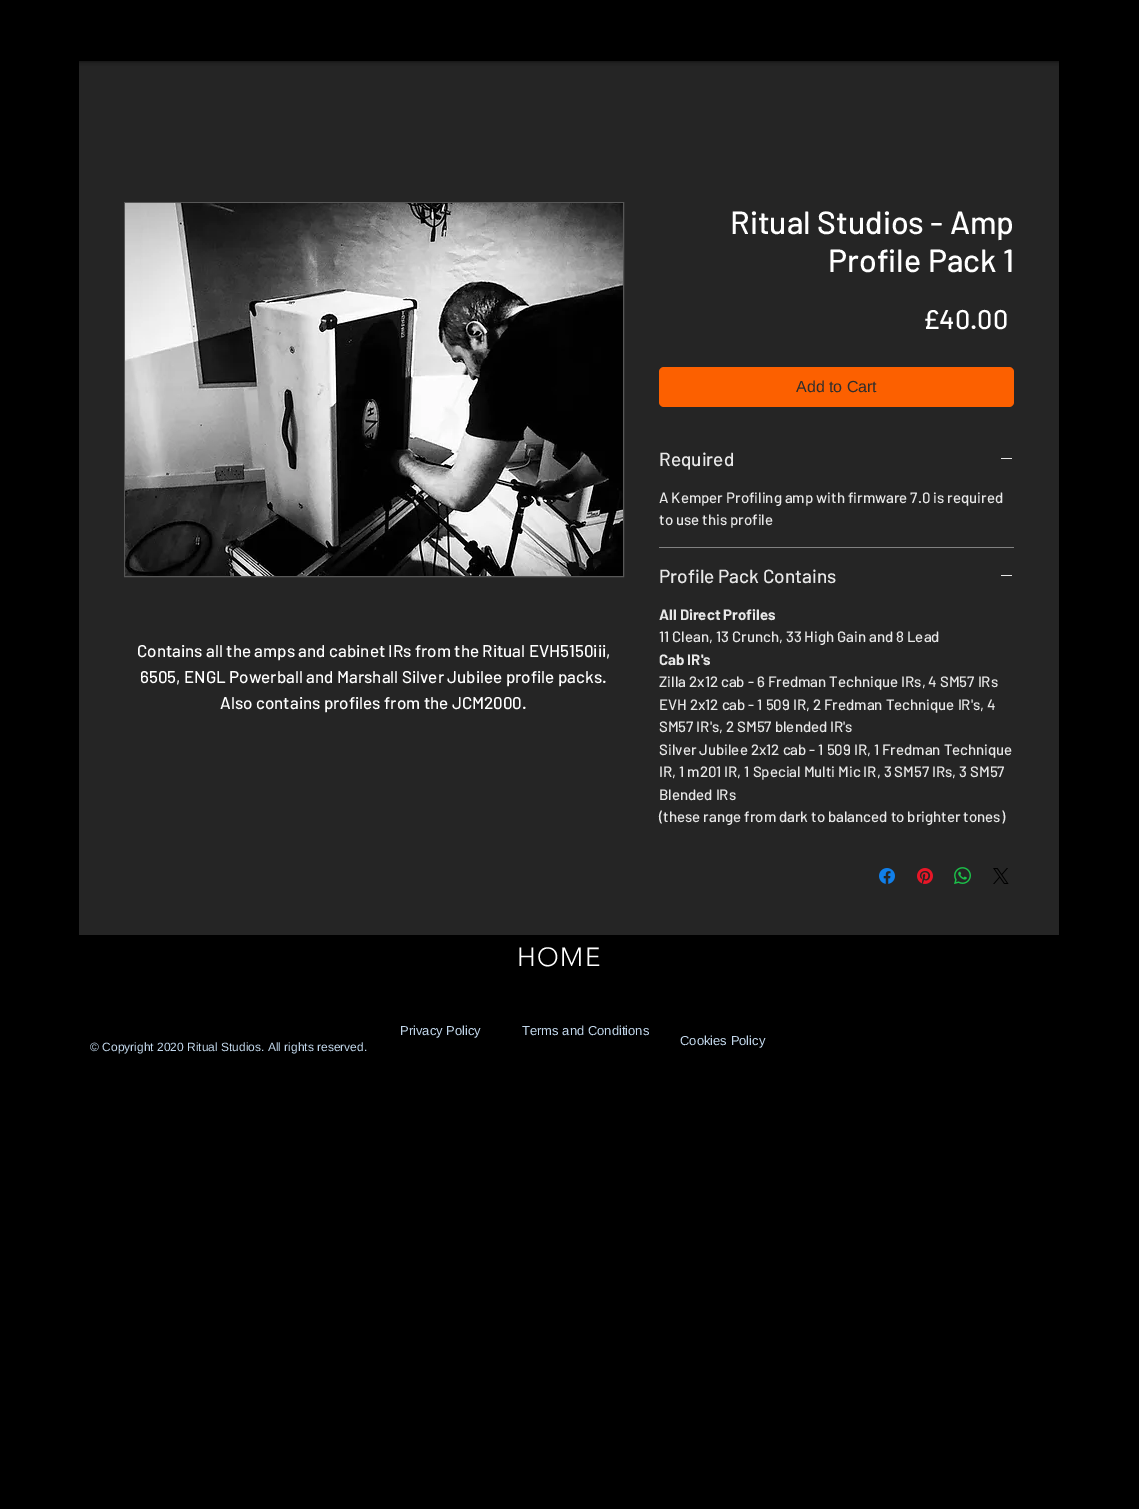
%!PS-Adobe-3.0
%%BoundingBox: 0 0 1139 1509
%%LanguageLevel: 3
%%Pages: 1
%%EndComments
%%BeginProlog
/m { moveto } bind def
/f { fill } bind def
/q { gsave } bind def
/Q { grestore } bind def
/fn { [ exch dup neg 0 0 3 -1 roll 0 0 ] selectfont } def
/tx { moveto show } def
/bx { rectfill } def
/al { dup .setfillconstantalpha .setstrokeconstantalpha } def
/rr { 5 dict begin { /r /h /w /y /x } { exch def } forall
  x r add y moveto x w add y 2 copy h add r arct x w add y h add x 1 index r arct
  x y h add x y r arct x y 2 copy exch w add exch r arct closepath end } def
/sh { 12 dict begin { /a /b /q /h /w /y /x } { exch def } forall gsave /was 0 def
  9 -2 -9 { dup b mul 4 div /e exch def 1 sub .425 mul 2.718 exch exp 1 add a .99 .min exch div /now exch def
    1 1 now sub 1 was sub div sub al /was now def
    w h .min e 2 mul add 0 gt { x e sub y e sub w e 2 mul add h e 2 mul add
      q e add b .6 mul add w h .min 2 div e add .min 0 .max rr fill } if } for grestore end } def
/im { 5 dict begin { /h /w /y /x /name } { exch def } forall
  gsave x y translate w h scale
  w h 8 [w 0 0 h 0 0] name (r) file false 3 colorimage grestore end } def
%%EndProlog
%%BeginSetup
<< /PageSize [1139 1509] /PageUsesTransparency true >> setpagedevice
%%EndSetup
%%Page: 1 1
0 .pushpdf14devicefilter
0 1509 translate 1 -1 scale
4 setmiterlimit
0 setgray
0 0 1139 1509 bx
0.145 setgray
79 61 980 874 bx
q
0 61 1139 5 rectclip
0 setgray
0 0 1139 61 0 2.5 0.7 sh
Q
0.341 setgray
124.5 202.5 499 374 rectstroke
(image0.raw) 125 203 498 373 im
/Barlow-Medium 17 fn
1 setgray
(Contains all the amps and cabinet IRs from the Ritual EVH5150iii,) 137 657 tx
(6505, ENGL Powerball and Marshall Silver Jubilee profile packs.) 140 683 tx
(Also contains profiles from the JCM2000.) 220 709 tx
/Barlow-Medium 32 fn
(Ritual Studios - Amp) 730 234 tx
(Profile Pack 1) 828 272 tx
/Barlow-Medium 27 fn
(£40.00) 923 329 tx
0.988 0.376 0 setrgbcolor
659 367 355 40 5 rr f
/LiberationSans-Regular 16 fn
0.176 setgray
(Add to Cart) 796 392 tx
0.506 setgray
659 547 355 1 bx
/Barlow-Medium 19 fn
0.91 setgray
(Required) 659 466 tx
1001 458 11 1 bx
/Barlow-Medium 15 fn
(A Kemper Profiling amp with firmware 7.0 is required) 659 503 tx
(to use this profile) 659 525 tx
/Barlow-Medium 19 fn
(Profile Pack Contains) 659 583 tx
1001 575 11 1 bx
/Barlow-Bold 15 fn
(All Direct Profiles) 659 620 tx
/Barlow-Medium 15 fn
(11 Clean, 13 Crunch, 33 High Gain and 8 Lead) 659 642 tx
/Barlow-Bold 15 fn
(Cab IR's) 659 665 tx
/Barlow-Medium 15 fn
(Zilla 2x12 cab - 6 Fredman Technique IRs, 4 SM57 IRs) 659 687 tx
(EVH 2x12 cab - 1 509 IR, 2 Fredman Technique IR's, 4) 659 710 tx
(SM57 IR's, 2 SM57 blended IR's) 659 732 tx
(Silver Jubilee 2x12 cab - 1 509 IR, 1 Fredman Technique) 659 755 tx
(IR, 1 m201 IR, 1 Special Multi Mic IR, 3 SM57 IRs, 3 SM57) 659 777 tx
(Blended IRs) 659 800 tx
(\(these range from dark to balanced to brighter tones\)) 659 822 tx
(image1.raw) 879 868 16 16 im
(image2.raw) 917 868 16 16 im
(image3.raw) 954 867 17 17 im
(image4.raw) 993 868 16 16 im
/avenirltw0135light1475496-Light 26 fn
1 setgray
517 966 m 1.5 0 (HOME) ashow
/LiberationSans-Regular 13 fn
0.761 0.843 0.922 setrgbcolor
(Privacy Policy) 400 1035 tx
(Terms and Conditions) 522 1035 tx
/LiberationSans-Regular 12 fn
(© Copyright 2020 Ritual Studios. All rights reserved.) 90 1051 tx
/LiberationSans-Regular 13 fn
(Cookies Policy) 680 1045 tx
.poppdf14devicefilter showpage
%%EOF
